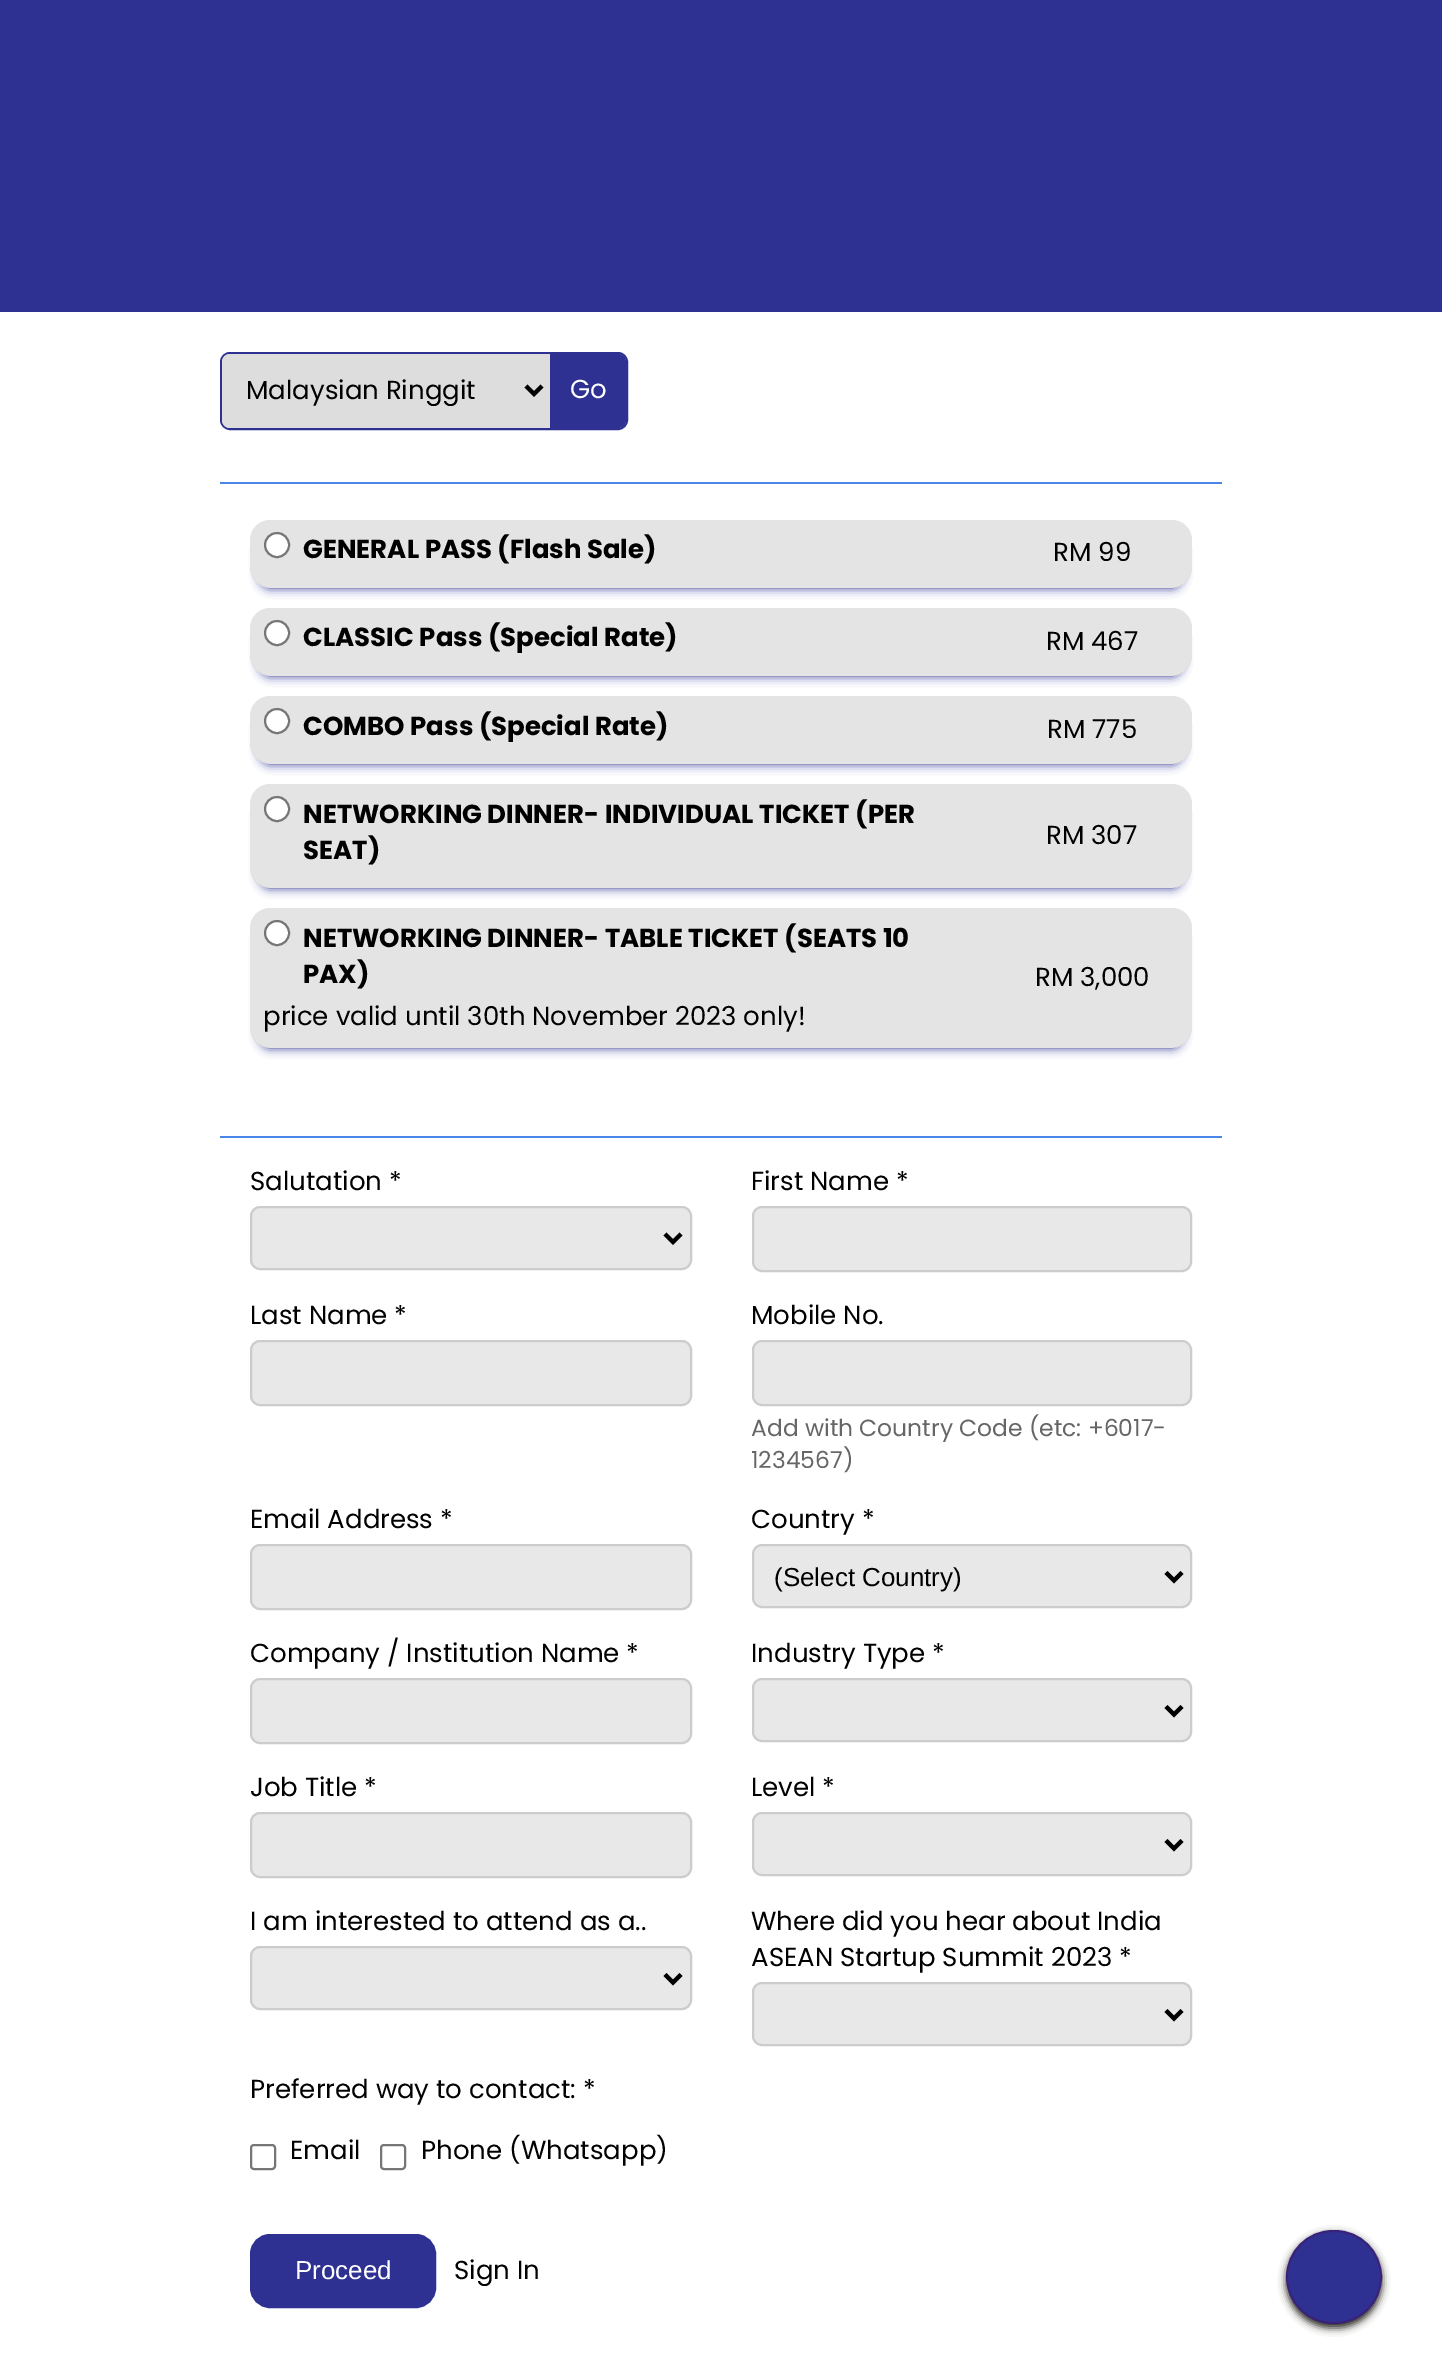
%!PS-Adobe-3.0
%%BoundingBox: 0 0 1442 2364
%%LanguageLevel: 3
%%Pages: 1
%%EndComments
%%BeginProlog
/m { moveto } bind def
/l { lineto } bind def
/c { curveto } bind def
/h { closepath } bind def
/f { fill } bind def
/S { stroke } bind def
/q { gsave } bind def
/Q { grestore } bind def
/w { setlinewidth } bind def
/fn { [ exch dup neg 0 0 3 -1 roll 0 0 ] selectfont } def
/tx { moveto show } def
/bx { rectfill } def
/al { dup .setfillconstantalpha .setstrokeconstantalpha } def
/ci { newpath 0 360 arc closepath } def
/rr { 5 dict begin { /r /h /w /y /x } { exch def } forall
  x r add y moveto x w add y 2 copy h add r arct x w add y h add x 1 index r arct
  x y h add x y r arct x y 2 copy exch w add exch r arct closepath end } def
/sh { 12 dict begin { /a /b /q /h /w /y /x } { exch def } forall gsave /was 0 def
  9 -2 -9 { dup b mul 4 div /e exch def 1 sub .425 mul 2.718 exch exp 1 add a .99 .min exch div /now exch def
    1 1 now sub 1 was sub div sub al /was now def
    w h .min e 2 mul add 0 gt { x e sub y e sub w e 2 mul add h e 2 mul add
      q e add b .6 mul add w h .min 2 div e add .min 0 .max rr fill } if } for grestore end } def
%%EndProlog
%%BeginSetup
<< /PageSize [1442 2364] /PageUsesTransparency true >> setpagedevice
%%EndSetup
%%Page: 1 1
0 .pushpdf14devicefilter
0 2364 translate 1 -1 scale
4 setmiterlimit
1 setgray
0 0 1442 2364 bx
0.18 0.192 0.573 setrgbcolor
0 0 1442 312 bx
2 w
221 353 406 76 9 rr S
0.867 setgray
230 354 m 550 354 l 550 428 l 230 428 l 225.5 428 222 424.5 222 420 c 222 362 l 222 357.5 225.5 354 230 354 c h f
0 setgray
4 w
526 386 m 534 394 l 542 386 l S
/Poppins-Regular 26 fn
(Malaysian Ringgit) 246 399 tx
0.18 0.192 0.573 setrgbcolor
550 354 m 618 354 l 622.5 354 626 357.5 626 362 c 626 420 l 626 424.5 622.5 428 618 428 c 550 428 l h f
1 setgray
(Go) 570 398 tx
0.29 0.525 0.91 setrgbcolor
220 482 1002 2 bx
q
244 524 m 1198 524 l 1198 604 l 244 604 l h 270 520 m 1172 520 l 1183 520 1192 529 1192 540 c 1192 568 l 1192 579 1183 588 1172 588 c 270 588 l 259 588 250 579 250 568 c 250 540 l 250 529 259 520 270 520 c h eoclip newpath
0.18 0.192 0.573 setrgbcolor
260 540 922 48 10 5 1 sh
Q
0.8 al
0.867 setgray
250 520 942 68 20 rr f
1 al
1 setgray
277 545 12 ci q f Q
0.463 setgray
2 w
S
/Poppins-Bold 26 fn
0 setgray
(GENERAL PASS \(Flash Sale\)) 303 558 tx
/Poppins-Regular 26 fn
(RM 99) 1053 561 tx
q
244 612 m 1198 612 l 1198 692 l 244 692 l h 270 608 m 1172 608 l 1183 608 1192 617 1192 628 c 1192 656 l 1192 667 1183 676 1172 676 c 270 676 l 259 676 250 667 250 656 c 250 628 l 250 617 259 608 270 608 c h eoclip newpath
0.18 0.192 0.573 setrgbcolor
260 628 922 48 10 5 1 sh
Q
0.8 al
0.867 setgray
250 608 942 68 20 rr f
1 al
1 setgray
277 633 12 ci q f Q
0.463 setgray
S
/Poppins-Bold 26 fn
0 setgray
(CLASSIC Pass \(Special Rate\)) 303 646 tx
/Poppins-Regular 26 fn
(RM 467) 1046 650 tx
q
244 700 m 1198 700 l 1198 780 l 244 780 l h 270 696 m 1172 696 l 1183 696 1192 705 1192 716 c 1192 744 l 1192 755 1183 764 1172 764 c 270 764 l 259 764 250 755 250 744 c 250 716 l 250 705 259 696 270 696 c h eoclip newpath
0.18 0.192 0.573 setrgbcolor
260 716 922 48 10 5 1 sh
Q
0.8 al
0.867 setgray
250 696 942 68 20 rr f
1 al
1 setgray
277 721 12 ci q f Q
0.463 setgray
S
/Poppins-Bold 26 fn
0 setgray
(COMBO Pass \(Special Rate\)) 303 735 tx
/Poppins-Regular 26 fn
(RM 775) 1047 738 tx
q
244 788 m 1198 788 l 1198 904 l 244 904 l h 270 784 m 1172 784 l 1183 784 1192 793 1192 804 c 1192 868 l 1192 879 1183 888 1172 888 c 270 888 l 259 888 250 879 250 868 c 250 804 l 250 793 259 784 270 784 c h eoclip newpath
0.18 0.192 0.573 setrgbcolor
260 804 922 84 10 5 1 sh
Q
0.8 al
0.867 setgray
250 784 942 104 20 rr f
1 al
1 setgray
277 809 12 ci q f Q
0.463 setgray
S
/Poppins-Bold 26 fn
0 setgray
(NETWORKING DINNER- INDIVIDUAL TICKET \(PER) 303 823 tx
(SEAT\)) 303 859 tx
/Poppins-Regular 26 fn
(RM 307) 1046 844 tx
q
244 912 m 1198 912 l 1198 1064 l 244 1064 l h 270 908 m 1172 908 l 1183 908 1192 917 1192 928 c 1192 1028 l 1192 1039 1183 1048 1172 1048 c 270 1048 l 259 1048 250 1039 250 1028 c 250 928 l 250 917 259 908 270 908 c h eoclip newpath
0.18 0.192 0.573 setrgbcolor
260 928 922 120 10 5 1 sh
Q
0.8 al
0.867 setgray
250 908 942 140 20 rr f
1 al
1 setgray
277 933 12 ci q f Q
0.463 setgray
S
/Poppins-Bold 26 fn
0 setgray
(NETWORKING DINNER- TABLE TICKET \(SEATS 10) 303 947 tx
(PAX\)) 303 983 tx
/Poppins-Regular 26 fn
(price valid until 30th November 2023 only!) 263 1025 tx
(RM 3,000) 1035 986 tx
0.29 0.525 0.91 setrgbcolor
220 1136 1002 2 bx
0 setgray
(Salutation *) 250 1190 tx
0.91 setgray
251 1207 440 62 9 rr q f Q
0.8 setgray
S
0 setgray
4 w
665 1234 m 673 1242 l 681 1234 l S
(First Name *) 751 1190 tx
0.91 setgray
753 1207 438 64 9 rr q f Q
0.8 setgray
2 w
S
0 setgray
(Last Name *) 250 1324 tx
0.91 setgray
251 1341 440 64 9 rr q f Q
0.8 setgray
S
0 setgray
(Mobile No.) 751 1324 tx
0.91 setgray
753 1341 438 64 9 rr q f Q
0.8 setgray
S
/Poppins-Regular 23.4 fn
0.4 setgray
(Add with Country Code \(etc: +6017-) 751 1436 tx
(1234567\)) 751 1468 tx
/Poppins-Regular 26 fn
0 setgray
(Email Address *) 250 1528 tx
0.91 setgray
251 1545 440 64 9 rr q f Q
0.8 setgray
S
0 setgray
(Country *) 751 1528 tx
0.91 setgray
753 1545 438 62 9 rr q f Q
0.8 setgray
S
0 setgray
4 w
1166 1572.5 m 1174 1580.5 l 1182 1572.5 l S
/LiberationSans-Regular 26 fn
(\(Select Country\)) 774 1586 tx
/Poppins-Regular 26 fn
(Company / Institution Name *) 250 1662 tx
0.91 setgray
251 1679 440 64 9 rr q f Q
0.8 setgray
2 w
S
0 setgray
(Industry Type *) 751 1662 tx
0.91 setgray
753 1679 438 62 9 rr q f Q
0.8 setgray
S
0 setgray
4 w
1166 1706.5 m 1174 1714.5 l 1182 1706.5 l S
(Job Title *) 250 1796 tx
0.91 setgray
251 1813 440 64 9 rr q f Q
0.8 setgray
2 w
S
0 setgray
(Level *) 751 1796 tx
0.91 setgray
753 1813 438 62 9 rr q f Q
0.8 setgray
S
0 setgray
4 w
1166 1840.5 m 1174 1848.5 l 1182 1840.5 l S
(I am interested to attend as a..) 250 1930 tx
0.91 setgray
251 1947 440 62 9 rr q f Q
0.8 setgray
2 w
S
0 setgray
4 w
665 1974.5 m 673 1982.5 l 681 1974.5 l S
(Where did you hear about India) 751 1930 tx
(ASEAN Startup Summit 2023 *) 751 1966 tx
0.91 setgray
753 1983 438 62 9 rr q f Q
0.8 setgray
2 w
S
0 setgray
4 w
1166 2010.5 m 1174 2018.5 l 1182 2010.5 l S
(Preferred way to contact: *) 250 2098 tx
0.463 setgray
2 w
251 2145 24 24 3 rr S
0 setgray
(Email) 290 2159 tx
0.463 setgray
381 2145 24 24 3 rr S
0 setgray
(Phone \(Whatsapp\)) 421 2159 tx
0.18 0.192 0.573 setrgbcolor
253 2237 180 68 17 rr q f Q
6 w
S
/LiberationSans-Regular 26 fn
1 setgray
(Proceed) 295 2279 tx
/Poppins-Regular 26 fn
0 setgray
(Sign In) 454 2279 tx
0.145 0.133 0.098 setrgbcolor
1286 2234 96 94 47 4 1 sh
0.18 0.192 0.573 setrgbcolor
1287 2231 94 92 46 rr q f Q
0.224 0.133 0.478 setrgbcolor
2 w
S
.poppdf14devicefilter showpage
%%EOF
